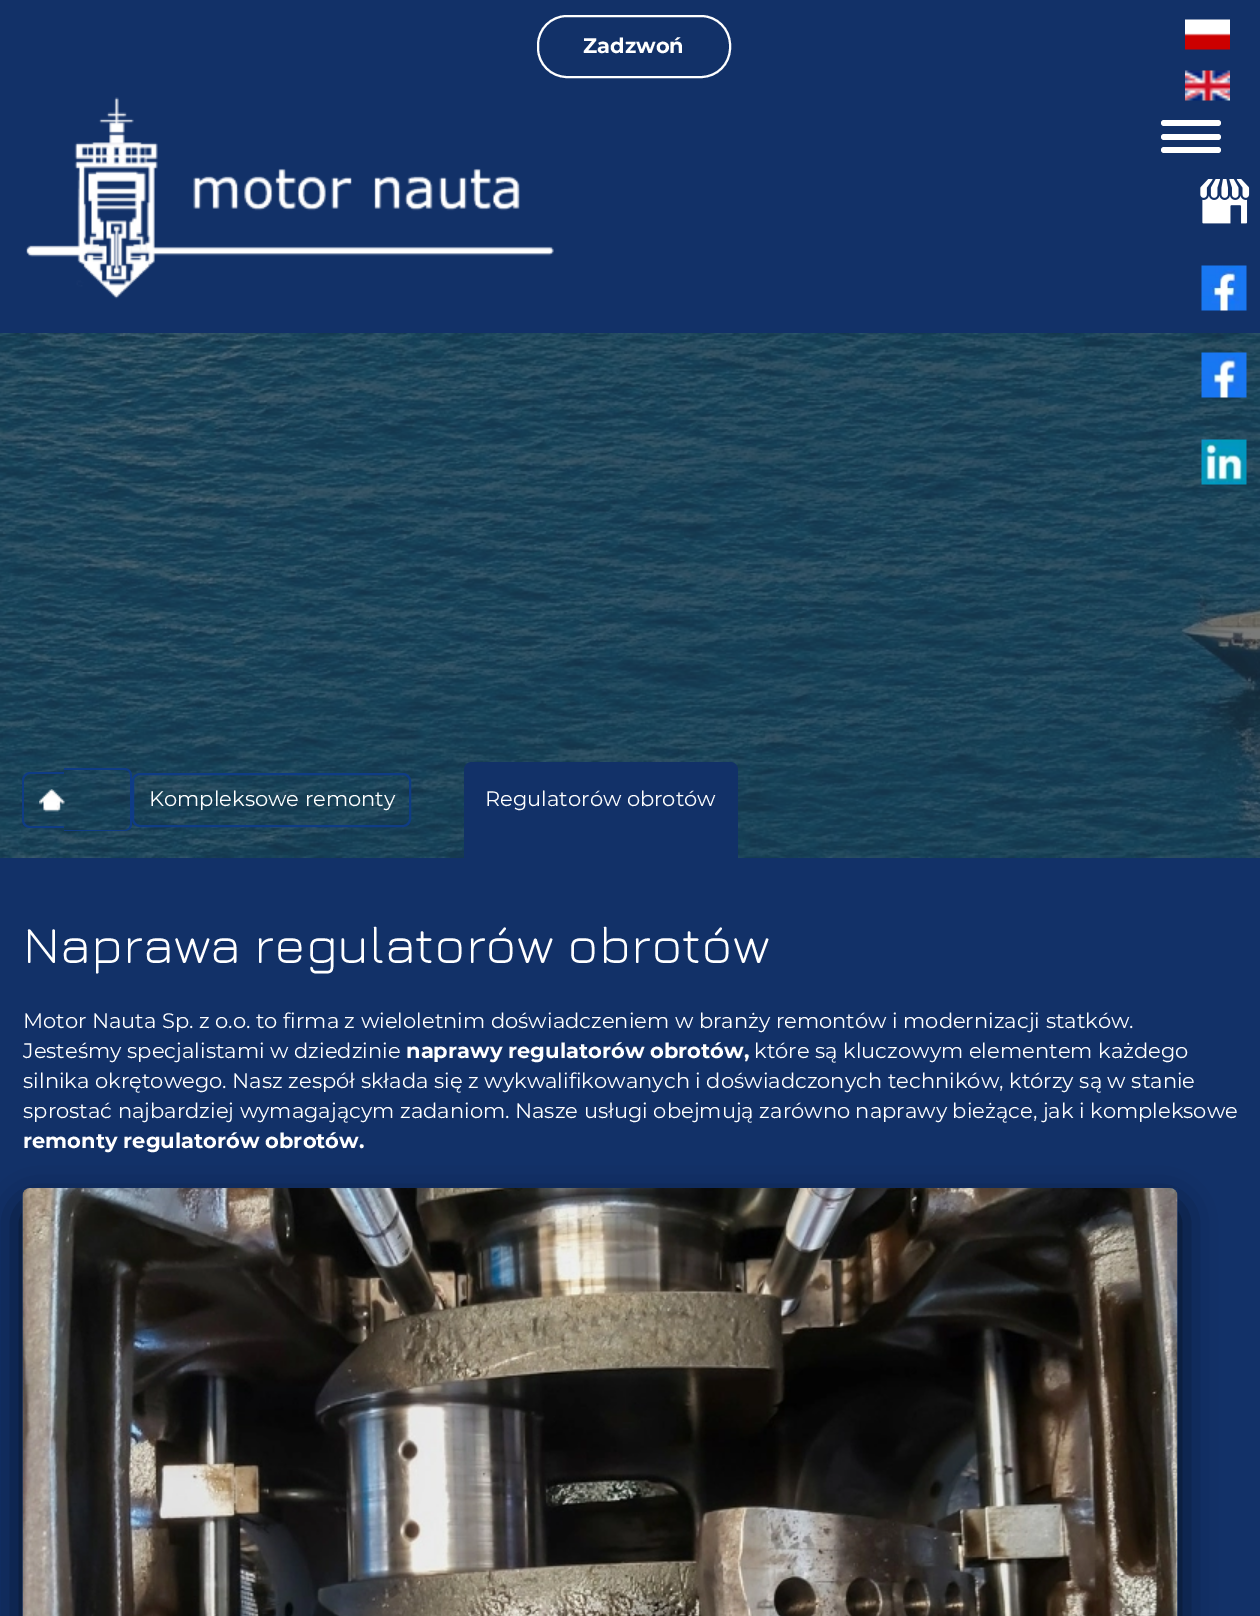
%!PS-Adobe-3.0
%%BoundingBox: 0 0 1260 1616
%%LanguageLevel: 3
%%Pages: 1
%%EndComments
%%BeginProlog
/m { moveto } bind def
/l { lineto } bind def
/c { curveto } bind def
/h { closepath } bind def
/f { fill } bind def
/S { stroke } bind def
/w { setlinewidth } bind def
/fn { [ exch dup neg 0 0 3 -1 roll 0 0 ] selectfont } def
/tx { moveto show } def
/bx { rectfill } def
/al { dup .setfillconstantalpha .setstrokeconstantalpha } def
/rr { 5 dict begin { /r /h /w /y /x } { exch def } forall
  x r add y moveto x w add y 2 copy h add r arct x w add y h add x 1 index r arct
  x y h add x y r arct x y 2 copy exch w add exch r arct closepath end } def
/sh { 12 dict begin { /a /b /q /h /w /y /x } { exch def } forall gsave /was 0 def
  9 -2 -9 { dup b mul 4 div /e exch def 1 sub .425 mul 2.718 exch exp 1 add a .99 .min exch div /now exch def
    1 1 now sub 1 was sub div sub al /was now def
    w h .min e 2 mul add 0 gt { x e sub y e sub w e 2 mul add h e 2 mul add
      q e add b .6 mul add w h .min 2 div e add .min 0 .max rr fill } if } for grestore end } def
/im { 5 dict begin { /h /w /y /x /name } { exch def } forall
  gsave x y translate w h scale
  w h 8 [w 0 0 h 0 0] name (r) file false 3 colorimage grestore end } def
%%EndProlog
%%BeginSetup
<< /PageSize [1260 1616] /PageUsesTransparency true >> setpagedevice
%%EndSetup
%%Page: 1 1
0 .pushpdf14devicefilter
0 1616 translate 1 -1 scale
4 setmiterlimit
0.071 0.192 0.408 setrgbcolor
0 0 1260 1616 bx
1 setgray
2 w
538 16 192 61 29 rr S
/Montserrat-Bold 21 fn
(Zadzwoń) 583 53 tx
(image0.raw) 1185 19 45 31 im
(image1.raw) 1185 70 45 31 im
(image2.raw) 26 97 528 202 im
1161 120 60 6 3 rr f
1161 134 60 6 3 rr f
1161 147 60 6 3 rr f
(image3.raw) 1200 179 50 45 im
(image4.raw) 1201 265 46 46 im
(image7.raw) 0 333 1260 525 im
(image5.raw) 1201 352 46 46 im
(image6.raw) 1201 439 46 46 im
0.059 0.235 0.522 setrgbcolor
30 772 m 64 772 l 64 828 l 30 828 l 26 828 22 825 22 820 c 22 780 l 22 776 26 772 30 772 c h 30 774 m 64 774 l 64 826 l 30 826 l 27 826 24 824 24 820 c 24 780 l 24 777 27 774 30 774 c h eofill
64 768 m 124 768 l 129 768 132 771 132 776 c 132 824 l 132 828 129 831 124 831 c 64 831 l h 64 770 m 124 770 l 128 770 130 772 130 776 c 130 824 l 130 827 128 830 124 830 c 64 830 l h eofill
(image8.raw) 39 789 26 23 im
133 774 277 52 7 rr S
/Montserrat-Regular 21 fn
1 setgray
(Kompleksowe remonty) 149 806 tx
0.071 0.192 0.408 setrgbcolor
472 762 m 730 762 l 734.5 762 738 765.5 738 770 c 738 860 l 464 860 l 464 770 l 464 765.5 467.5 762 472 762 c h f
1 setgray
(Regulatorów obrotów) 485 806 tx
/Jura-Regular 52.5 fn
(Naprawa regulatorów obrotów) 23 963 tx
/Montserrat-Regular 21 fn
(Motor Nauta Sp. z o.o. to firma z wieloletnim doświadczeniem w branży remontów i modernizacji statków.) 23 1028 tx
(Jesteśmy specjalistami w dziedzinie) 23 1058 tx
/Montserrat-Bold 21 fn
(naprawy regulatorów obrotów,) 406 1058 tx
/Montserrat-Regular 21 fn
(które są kluczowym elementem każdego) 754 1058 tx
(silnika okrętowego. Nasz zespół składa się z wykwalifikowanych i doświadczonych techników, którzy są w stanie) 23 1088 tx
(sprostać najbardziej wymagającym zadaniom. Nasze usługi obejmują zarówno naprawy bieżące, jak i kompleksowe) 23 1118 tx
/Montserrat-Bold 21 fn
(remonty regulatorów obrotów.) 23 1148 tx
0 setgray
23 1206 1155 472 8 18 0.75 sh
(image9.raw) 22 1188 1156 428 im
.poppdf14devicefilter showpage
%%EOF
